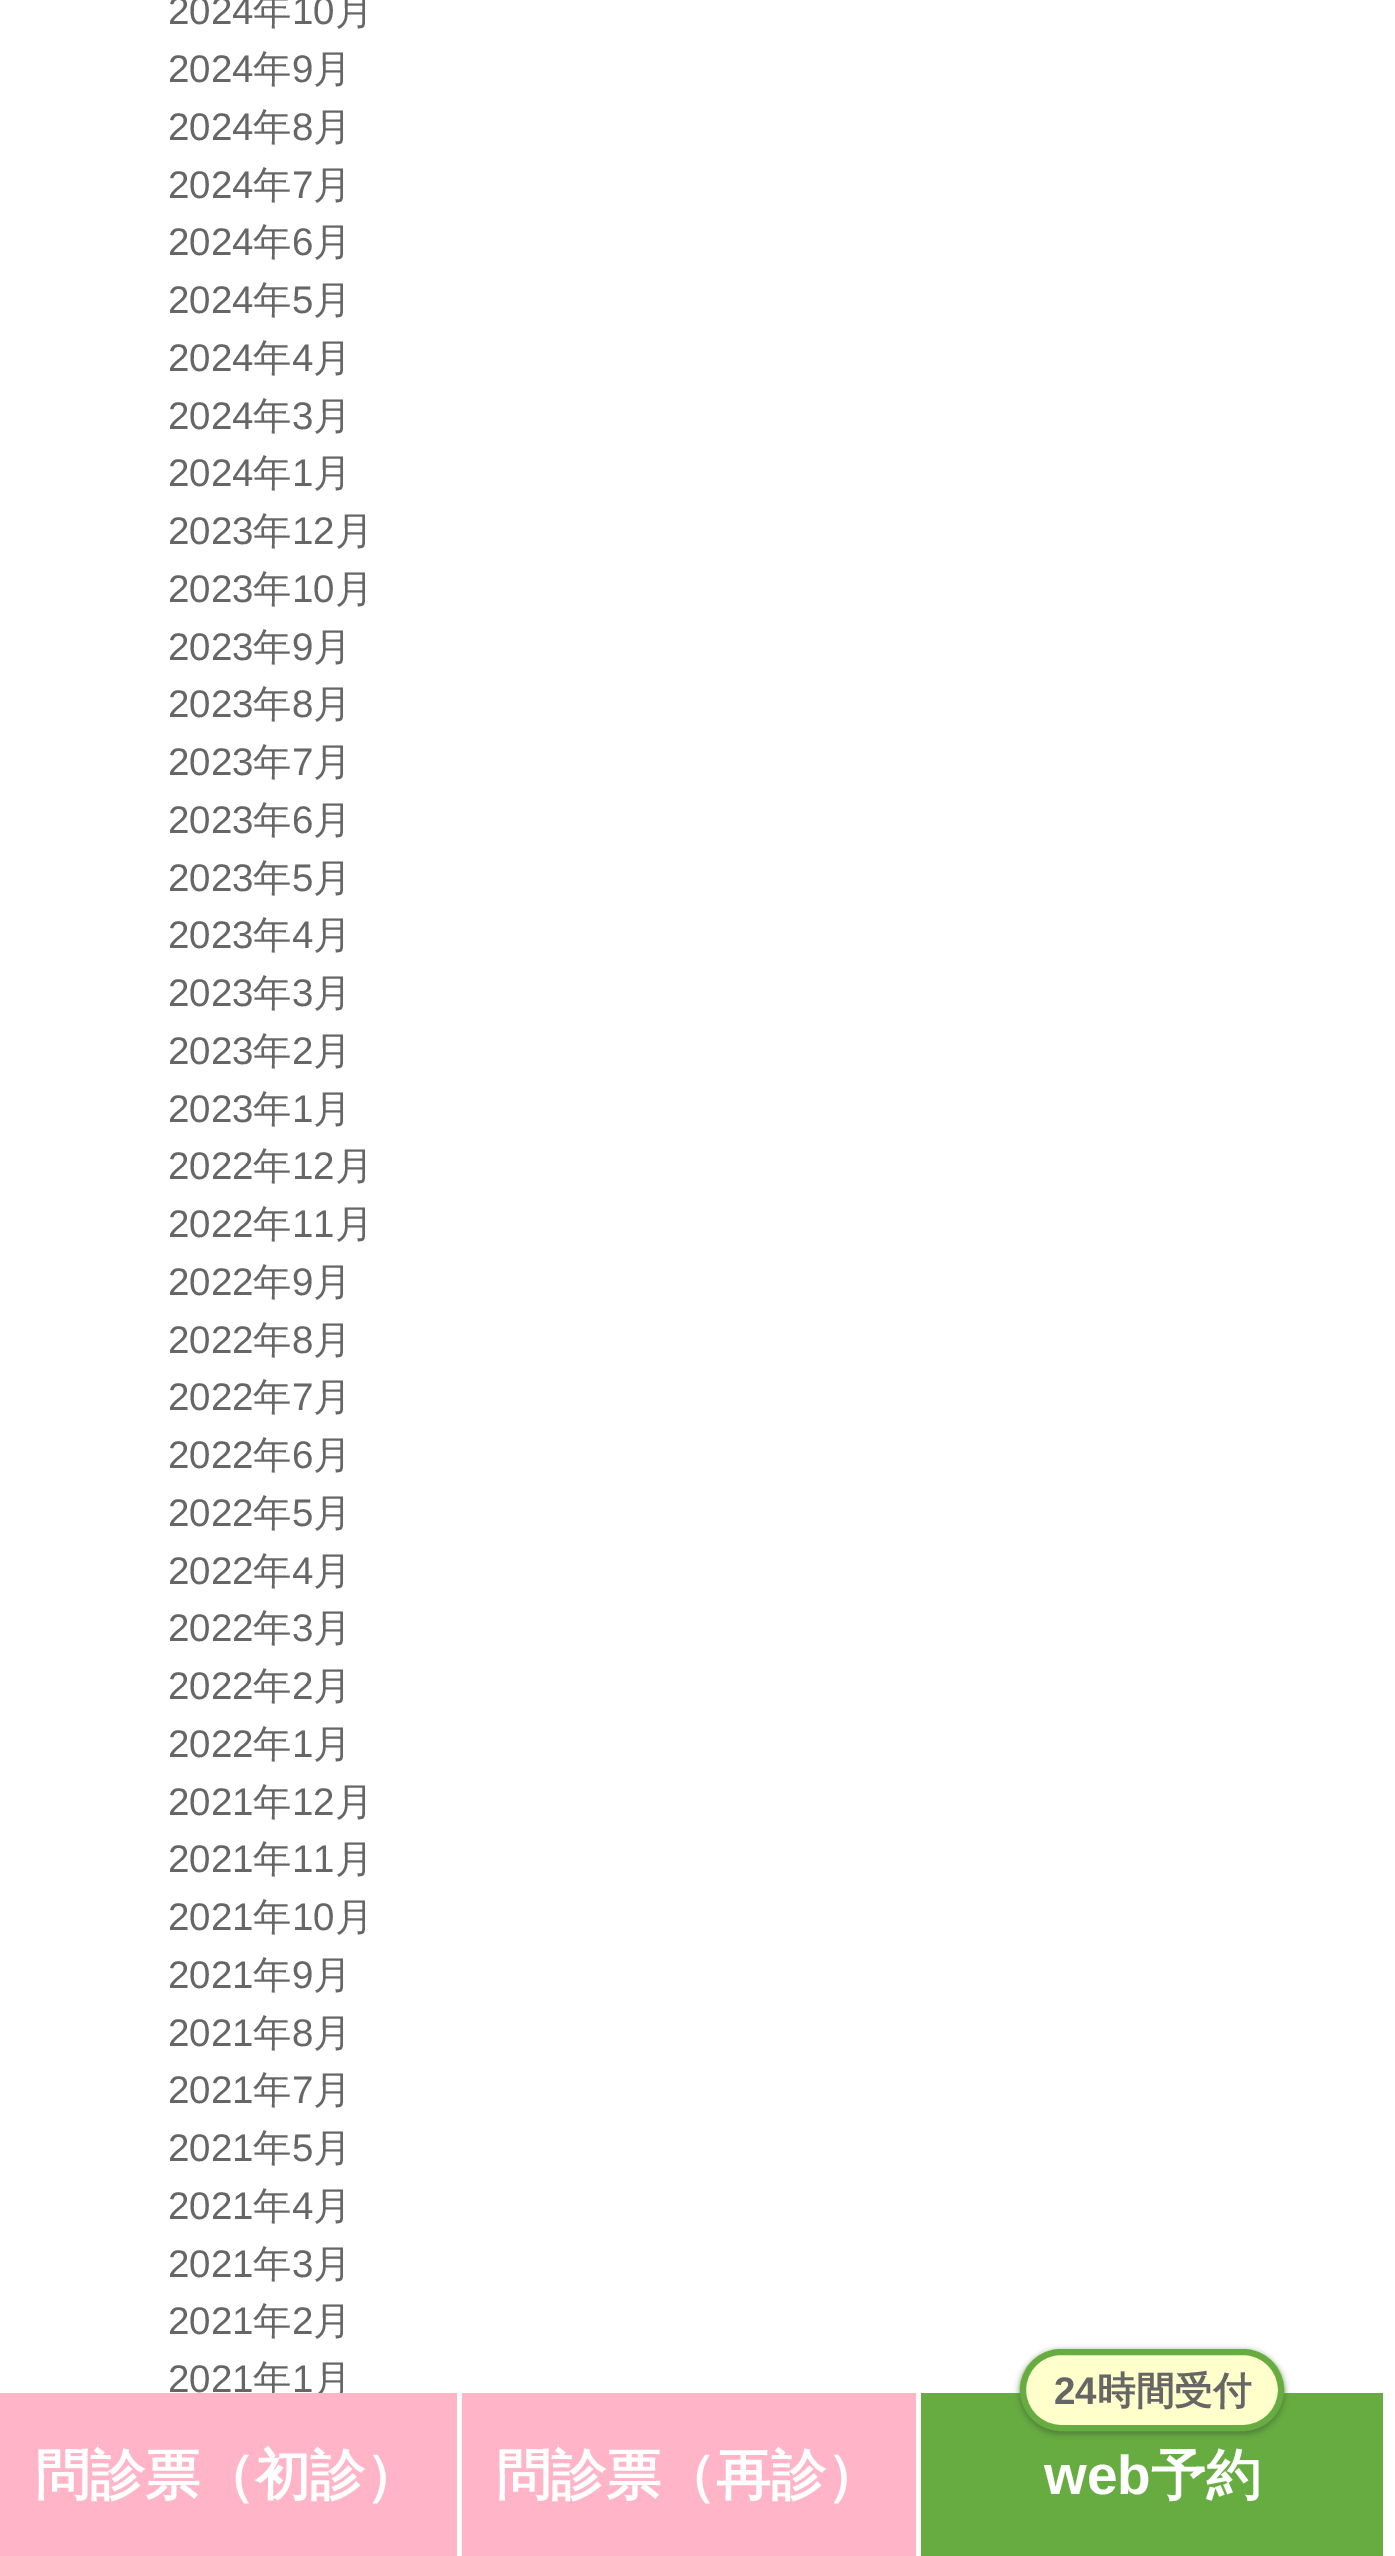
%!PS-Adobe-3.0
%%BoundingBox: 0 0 1395 2556
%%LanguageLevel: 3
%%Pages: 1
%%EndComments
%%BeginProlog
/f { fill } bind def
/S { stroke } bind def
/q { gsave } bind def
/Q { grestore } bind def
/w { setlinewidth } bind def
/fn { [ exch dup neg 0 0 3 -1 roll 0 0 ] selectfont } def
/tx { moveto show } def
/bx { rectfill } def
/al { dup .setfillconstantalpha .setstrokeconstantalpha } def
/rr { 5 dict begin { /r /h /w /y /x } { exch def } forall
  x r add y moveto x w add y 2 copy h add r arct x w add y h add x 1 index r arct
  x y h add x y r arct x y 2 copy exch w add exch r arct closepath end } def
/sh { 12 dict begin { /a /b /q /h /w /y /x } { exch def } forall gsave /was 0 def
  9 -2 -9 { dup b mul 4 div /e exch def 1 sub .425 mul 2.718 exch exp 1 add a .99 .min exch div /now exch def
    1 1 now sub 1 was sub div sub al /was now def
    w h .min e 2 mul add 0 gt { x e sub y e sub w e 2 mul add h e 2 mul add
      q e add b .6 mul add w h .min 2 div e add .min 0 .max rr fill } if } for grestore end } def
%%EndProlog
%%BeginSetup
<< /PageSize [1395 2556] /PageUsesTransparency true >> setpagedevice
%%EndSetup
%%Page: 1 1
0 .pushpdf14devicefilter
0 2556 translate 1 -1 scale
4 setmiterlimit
1 setgray
0 0 1395 2556 bx
/LiberationSans-Regular 38.5 fn
0.4 setgray
(2024) 168 24 tx
/WenQuanYiZenHei-Medium 38.5 fn
(年) 253 24 tx
/LiberationSans-Regular 38.5 fn
(10) 292 24 tx
/WenQuanYiZenHei-Medium 38.5 fn
(月) 335 24 tx
/LiberationSans-Regular 38.5 fn
(2024) 168 82 tx
/WenQuanYiZenHei-Medium 38.5 fn
(年) 253 82 tx
/LiberationSans-Regular 38.5 fn
(9) 292 82 tx
/WenQuanYiZenHei-Medium 38.5 fn
(月) 313 82 tx
/LiberationSans-Regular 38.5 fn
(2024) 168 140 tx
/WenQuanYiZenHei-Medium 38.5 fn
(年) 253 140 tx
/LiberationSans-Regular 38.5 fn
(8) 292 140 tx
/WenQuanYiZenHei-Medium 38.5 fn
(月) 313 140 tx
/LiberationSans-Regular 38.5 fn
(2024) 168 198 tx
/WenQuanYiZenHei-Medium 38.5 fn
(年) 253 198 tx
/LiberationSans-Regular 38.5 fn
(7) 292 198 tx
/WenQuanYiZenHei-Medium 38.5 fn
(月) 313 198 tx
/LiberationSans-Regular 38.5 fn
(2024) 168 255 tx
/WenQuanYiZenHei-Medium 38.5 fn
(年) 253 255 tx
/LiberationSans-Regular 38.5 fn
(6) 292 255 tx
/WenQuanYiZenHei-Medium 38.5 fn
(月) 313 255 tx
/LiberationSans-Regular 38.5 fn
(2024) 168 313 tx
/WenQuanYiZenHei-Medium 38.5 fn
(年) 253 313 tx
/LiberationSans-Regular 38.5 fn
(5) 292 313 tx
/WenQuanYiZenHei-Medium 38.5 fn
(月) 313 313 tx
/LiberationSans-Regular 38.5 fn
(2024) 168 371 tx
/WenQuanYiZenHei-Medium 38.5 fn
(年) 253 371 tx
/LiberationSans-Regular 38.5 fn
(4) 292 371 tx
/WenQuanYiZenHei-Medium 38.5 fn
(月) 313 371 tx
/LiberationSans-Regular 38.5 fn
(2024) 168 429 tx
/WenQuanYiZenHei-Medium 38.5 fn
(年) 253 429 tx
/LiberationSans-Regular 38.5 fn
(3) 292 429 tx
/WenQuanYiZenHei-Medium 38.5 fn
(月) 313 429 tx
/LiberationSans-Regular 38.5 fn
(2024) 168 486 tx
/WenQuanYiZenHei-Medium 38.5 fn
(年) 253 486 tx
/LiberationSans-Regular 38.5 fn
(1) 292 486 tx
/WenQuanYiZenHei-Medium 38.5 fn
(月) 313 486 tx
/LiberationSans-Regular 38.5 fn
(2023) 168 544 tx
/WenQuanYiZenHei-Medium 38.5 fn
(年) 253 544 tx
/LiberationSans-Regular 38.5 fn
(12) 292 544 tx
/WenQuanYiZenHei-Medium 38.5 fn
(月) 335 544 tx
/LiberationSans-Regular 38.5 fn
(2023) 168 602 tx
/WenQuanYiZenHei-Medium 38.5 fn
(年) 253 602 tx
/LiberationSans-Regular 38.5 fn
(10) 292 602 tx
/WenQuanYiZenHei-Medium 38.5 fn
(月) 335 602 tx
/LiberationSans-Regular 38.5 fn
(2023) 168 660 tx
/WenQuanYiZenHei-Medium 38.5 fn
(年) 253 660 tx
/LiberationSans-Regular 38.5 fn
(9) 292 660 tx
/WenQuanYiZenHei-Medium 38.5 fn
(月) 313 660 tx
/LiberationSans-Regular 38.5 fn
(2023) 168 717 tx
/WenQuanYiZenHei-Medium 38.5 fn
(年) 253 717 tx
/LiberationSans-Regular 38.5 fn
(8) 292 717 tx
/WenQuanYiZenHei-Medium 38.5 fn
(月) 313 717 tx
/LiberationSans-Regular 38.5 fn
(2023) 168 775 tx
/WenQuanYiZenHei-Medium 38.5 fn
(年) 253 775 tx
/LiberationSans-Regular 38.5 fn
(7) 292 775 tx
/WenQuanYiZenHei-Medium 38.5 fn
(月) 313 775 tx
/LiberationSans-Regular 38.5 fn
(2023) 168 833 tx
/WenQuanYiZenHei-Medium 38.5 fn
(年) 253 833 tx
/LiberationSans-Regular 38.5 fn
(6) 292 833 tx
/WenQuanYiZenHei-Medium 38.5 fn
(月) 313 833 tx
/LiberationSans-Regular 38.5 fn
(2023) 168 891 tx
/WenQuanYiZenHei-Medium 38.5 fn
(年) 253 891 tx
/LiberationSans-Regular 38.5 fn
(5) 292 891 tx
/WenQuanYiZenHei-Medium 38.5 fn
(月) 313 891 tx
/LiberationSans-Regular 38.5 fn
(2023) 168 948 tx
/WenQuanYiZenHei-Medium 38.5 fn
(年) 253 948 tx
/LiberationSans-Regular 38.5 fn
(4) 292 948 tx
/WenQuanYiZenHei-Medium 38.5 fn
(月) 313 948 tx
/LiberationSans-Regular 38.5 fn
(2023) 168 1006 tx
/WenQuanYiZenHei-Medium 38.5 fn
(年) 253 1006 tx
/LiberationSans-Regular 38.5 fn
(3) 292 1006 tx
/WenQuanYiZenHei-Medium 38.5 fn
(月) 313 1006 tx
/LiberationSans-Regular 38.5 fn
(2023) 168 1064 tx
/WenQuanYiZenHei-Medium 38.5 fn
(年) 253 1064 tx
/LiberationSans-Regular 38.5 fn
(2) 292 1064 tx
/WenQuanYiZenHei-Medium 38.5 fn
(月) 313 1064 tx
/LiberationSans-Regular 38.5 fn
(2023) 168 1122 tx
/WenQuanYiZenHei-Medium 38.5 fn
(年) 253 1122 tx
/LiberationSans-Regular 38.5 fn
(1) 292 1122 tx
/WenQuanYiZenHei-Medium 38.5 fn
(月) 313 1122 tx
/LiberationSans-Regular 38.5 fn
(2022) 168 1179 tx
/WenQuanYiZenHei-Medium 38.5 fn
(年) 253 1179 tx
/LiberationSans-Regular 38.5 fn
(12) 292 1179 tx
/WenQuanYiZenHei-Medium 38.5 fn
(月) 335 1179 tx
/LiberationSans-Regular 38.5 fn
(2022) 168 1237 tx
/WenQuanYiZenHei-Medium 38.5 fn
(年) 253 1237 tx
/LiberationSans-Regular 38.5 fn
(11) 292 1237 tx
/WenQuanYiZenHei-Medium 38.5 fn
(月) 335 1237 tx
/LiberationSans-Regular 38.5 fn
(2022) 168 1295 tx
/WenQuanYiZenHei-Medium 38.5 fn
(年) 253 1295 tx
/LiberationSans-Regular 38.5 fn
(9) 292 1295 tx
/WenQuanYiZenHei-Medium 38.5 fn
(月) 313 1295 tx
/LiberationSans-Regular 38.5 fn
(2022) 168 1353 tx
/WenQuanYiZenHei-Medium 38.5 fn
(年) 253 1353 tx
/LiberationSans-Regular 38.5 fn
(8) 292 1353 tx
/WenQuanYiZenHei-Medium 38.5 fn
(月) 313 1353 tx
/LiberationSans-Regular 38.5 fn
(2022) 168 1410 tx
/WenQuanYiZenHei-Medium 38.5 fn
(年) 253 1410 tx
/LiberationSans-Regular 38.5 fn
(7) 292 1410 tx
/WenQuanYiZenHei-Medium 38.5 fn
(月) 313 1410 tx
/LiberationSans-Regular 38.5 fn
(2022) 168 1468 tx
/WenQuanYiZenHei-Medium 38.5 fn
(年) 253 1468 tx
/LiberationSans-Regular 38.5 fn
(6) 292 1468 tx
/WenQuanYiZenHei-Medium 38.5 fn
(月) 313 1468 tx
/LiberationSans-Regular 38.5 fn
(2022) 168 1526 tx
/WenQuanYiZenHei-Medium 38.5 fn
(年) 253 1526 tx
/LiberationSans-Regular 38.5 fn
(5) 292 1526 tx
/WenQuanYiZenHei-Medium 38.5 fn
(月) 313 1526 tx
/LiberationSans-Regular 38.5 fn
(2022) 168 1584 tx
/WenQuanYiZenHei-Medium 38.5 fn
(年) 253 1584 tx
/LiberationSans-Regular 38.5 fn
(4) 292 1584 tx
/WenQuanYiZenHei-Medium 38.5 fn
(月) 313 1584 tx
/LiberationSans-Regular 38.5 fn
(2022) 168 1641 tx
/WenQuanYiZenHei-Medium 38.5 fn
(年) 253 1641 tx
/LiberationSans-Regular 38.5 fn
(3) 292 1641 tx
/WenQuanYiZenHei-Medium 38.5 fn
(月) 313 1641 tx
/LiberationSans-Regular 38.5 fn
(2022) 168 1699 tx
/WenQuanYiZenHei-Medium 38.5 fn
(年) 253 1699 tx
/LiberationSans-Regular 38.5 fn
(2) 292 1699 tx
/WenQuanYiZenHei-Medium 38.5 fn
(月) 313 1699 tx
/LiberationSans-Regular 38.5 fn
(2022) 168 1757 tx
/WenQuanYiZenHei-Medium 38.5 fn
(年) 253 1757 tx
/LiberationSans-Regular 38.5 fn
(1) 292 1757 tx
/WenQuanYiZenHei-Medium 38.5 fn
(月) 313 1757 tx
/LiberationSans-Regular 38.5 fn
(2021) 168 1815 tx
/WenQuanYiZenHei-Medium 38.5 fn
(年) 253 1815 tx
/LiberationSans-Regular 38.5 fn
(12) 292 1815 tx
/WenQuanYiZenHei-Medium 38.5 fn
(月) 335 1815 tx
/LiberationSans-Regular 38.5 fn
(2021) 168 1872 tx
/WenQuanYiZenHei-Medium 38.5 fn
(年) 253 1872 tx
/LiberationSans-Regular 38.5 fn
(11) 292 1872 tx
/WenQuanYiZenHei-Medium 38.5 fn
(月) 335 1872 tx
/LiberationSans-Regular 38.5 fn
(2021) 168 1930 tx
/WenQuanYiZenHei-Medium 38.5 fn
(年) 253 1930 tx
/LiberationSans-Regular 38.5 fn
(10) 292 1930 tx
/WenQuanYiZenHei-Medium 38.5 fn
(月) 335 1930 tx
/LiberationSans-Regular 38.5 fn
(2021) 168 1988 tx
/WenQuanYiZenHei-Medium 38.5 fn
(年) 253 1988 tx
/LiberationSans-Regular 38.5 fn
(9) 292 1988 tx
/WenQuanYiZenHei-Medium 38.5 fn
(月) 313 1988 tx
/LiberationSans-Regular 38.5 fn
(2021) 168 2046 tx
/WenQuanYiZenHei-Medium 38.5 fn
(年) 253 2046 tx
/LiberationSans-Regular 38.5 fn
(8) 292 2046 tx
/WenQuanYiZenHei-Medium 38.5 fn
(月) 313 2046 tx
/LiberationSans-Regular 38.5 fn
(2021) 168 2103 tx
/WenQuanYiZenHei-Medium 38.5 fn
(年) 253 2103 tx
/LiberationSans-Regular 38.5 fn
(7) 292 2103 tx
/WenQuanYiZenHei-Medium 38.5 fn
(月) 313 2103 tx
/LiberationSans-Regular 38.5 fn
(2021) 168 2161 tx
/WenQuanYiZenHei-Medium 38.5 fn
(年) 253 2161 tx
/LiberationSans-Regular 38.5 fn
(5) 292 2161 tx
/WenQuanYiZenHei-Medium 38.5 fn
(月) 313 2161 tx
/LiberationSans-Regular 38.5 fn
(2021) 168 2219 tx
/WenQuanYiZenHei-Medium 38.5 fn
(年) 253 2219 tx
/LiberationSans-Regular 38.5 fn
(4) 292 2219 tx
/WenQuanYiZenHei-Medium 38.5 fn
(月) 313 2219 tx
/LiberationSans-Regular 38.5 fn
(2021) 168 2277 tx
/WenQuanYiZenHei-Medium 38.5 fn
(年) 253 2277 tx
/LiberationSans-Regular 38.5 fn
(3) 292 2277 tx
/WenQuanYiZenHei-Medium 38.5 fn
(月) 313 2277 tx
/LiberationSans-Regular 38.5 fn
(2021) 168 2334 tx
/WenQuanYiZenHei-Medium 38.5 fn
(年) 253 2334 tx
/LiberationSans-Regular 38.5 fn
(2) 292 2334 tx
/WenQuanYiZenHei-Medium 38.5 fn
(月) 313 2334 tx
/LiberationSans-Regular 38.5 fn
(2021) 168 2392 tx
/WenQuanYiZenHei-Medium 38.5 fn
(年) 253 2392 tx
/LiberationSans-Regular 38.5 fn
(1) 292 2392 tx
/WenQuanYiZenHei-Medium 38.5 fn
(月) 313 2392 tx
1 0.706 0.784 setrgbcolor
0 2393 457 163 bx
/WenQuanYiZenHei-Bold 55 fn
1 setgray
(問診票（初診）) 35 2494 tx
1 0.706 0.784 setrgbcolor
462 2393 454 163 bx
1 setgray
(問診票（再診）) 496 2494 tx
0.404 0.675 0.251 setrgbcolor
921 2393 462 163 bx
0.318 0.486 0.224 setrgbcolor
1020 2351 264 83 41.5 3 1 sh
1 1 0.8 setrgbcolor
1023 2352 258 76 38 rr q f Q
0.404 0.675 0.251 setrgbcolor
6 w
S
/LiberationSans-Bold 38.5 fn
0.4 setgray
(24) 1054 2404 tx
/WenQuanYiZenHei-Bold 38.5 fn
(時間受付) 1097 2404 tx
/LiberationSans-Bold 55 fn
1 setgray
(web) 1044 2494 tx
/WenQuanYiZenHei-Bold 55 fn
(予約) 1151 2494 tx
.poppdf14devicefilter showpage
%%EOF
